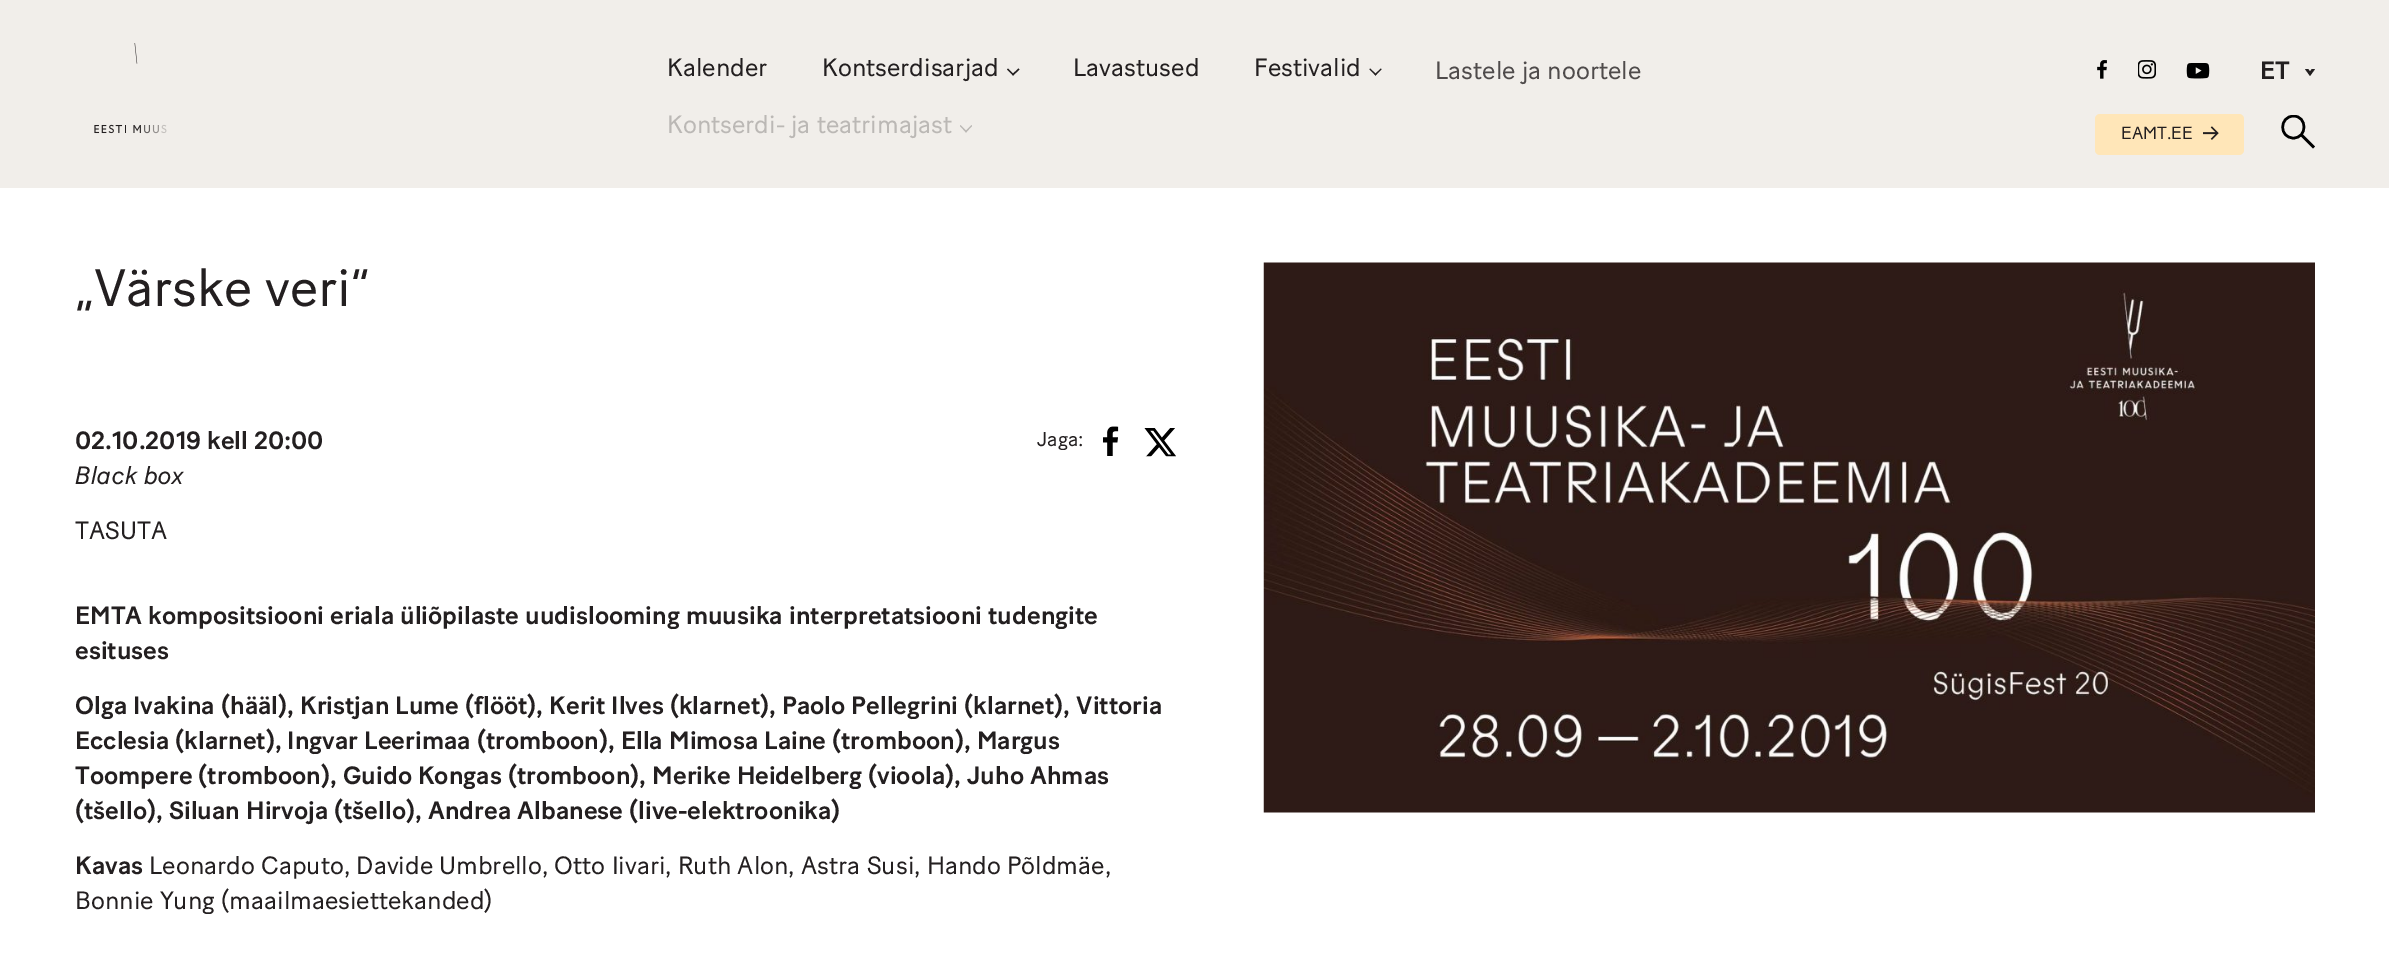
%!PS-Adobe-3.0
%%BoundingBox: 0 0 2389 972
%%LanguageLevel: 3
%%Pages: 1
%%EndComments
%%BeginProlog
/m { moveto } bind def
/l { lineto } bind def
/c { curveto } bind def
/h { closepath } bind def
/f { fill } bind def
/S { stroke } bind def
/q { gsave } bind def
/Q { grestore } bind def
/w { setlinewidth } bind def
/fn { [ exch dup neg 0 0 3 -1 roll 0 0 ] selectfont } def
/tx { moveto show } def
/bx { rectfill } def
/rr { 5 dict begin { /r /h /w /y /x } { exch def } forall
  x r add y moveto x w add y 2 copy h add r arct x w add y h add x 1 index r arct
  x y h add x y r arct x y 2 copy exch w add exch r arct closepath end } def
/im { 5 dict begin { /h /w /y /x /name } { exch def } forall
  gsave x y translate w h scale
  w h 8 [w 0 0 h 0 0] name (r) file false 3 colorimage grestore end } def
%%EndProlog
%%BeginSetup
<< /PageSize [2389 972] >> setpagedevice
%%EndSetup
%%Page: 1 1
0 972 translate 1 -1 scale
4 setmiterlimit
1 setgray
0 0 2389 972 bx
0.945 0.933 0.918 setrgbcolor
0 0 2389 188 bx
(image0.raw) 94 43 73 91 im
/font-Regular 25 fn
0.137 0.122 0.125 setrgbcolor
(Kalender) 667 76 tx
(Kontserdisarjad) 822 76 tx
1018.5 68.5 m 1019.5 69.5 l 1013 75.5 l 1012 74.5 l h f
1008 68.5 m 1014 74.5 l 1013 75.5 l 1007 69.5 l h f
(Lavastused) 1073 76 tx
(Festivalid) 1254 76 tx
0.141 0.125 0.129 setrgbcolor
1381 68.5 m 1381.5 69.5 l 1375.5 75.5 l 1374.5 74.5 l h f
1370 68.5 m 1376.5 74.5 l 1375.5 75.5 l 1369.5 69.5 l h f
0.31 0.294 0.294 setrgbcolor
(Lastele ja noortele) 1435 79 tx
0.733 0.722 0.71 setrgbcolor
(Kontserdi- ja teatrimajast) 667 133 tx
971.5 125 m 972 126 l 966 132.5 l 965 131.5 l h f
960.5 125 m 967 131.5 l 966 132.5 l 960 126 l h f
(image1.raw) 2097 60 10 19 im
(image2.raw) 2138 60 18 19 im
(image3.raw) 2186 63 24 16 im
/font-SemiBold 25 fn
0.137 0.122 0.125 setrgbcolor
(ET) 2260 79 tx
2305 69 m 2315 69 l 2310 76 l h f
0.945 0.933 0.918 setrgbcolor
2305 64 m 2315 64 l 2310 71 l h f
1 0.902 0.722 setrgbcolor
2095 114 149 41 5 rr f
/font-Regular 17.5 fn
0.137 0.122 0.125 setrgbcolor
(EAMT.EE) 2121 139 tx
(image4.raw) 2203 126 16 14 im
q
2281 115 34 34 rectclip
0 setgray
2.5 w
2293.5 138 m 2307.5 138 2307.5 116 2293.5 116 c 2279 116.5 2279 138 2293.5 138 c h S
Q
0 setgray
2.5 w
2301 134.5 m 2314 147.5 l S
/font-Regular 52.5 fn
0.137 0.122 0.125 setrgbcolor
(„Värske veri“) 75 306 tx
/font-SemiBold 25 fn
(02.10.2019 kell 20:00) 75 449 tx
/font-Italic 25 fn
(Black box) 75 484 tx
/font-Regular 25 fn
(TASUTA) 75 539 tx
/font-Regular 20 fn
(Jaga:) 1037 446 tx
(image5.raw) 1103 426 16 30 im
(image6.raw) 1144 428 32 29 im
/font-SemiBold 25 fn
(EMTA kompositsiooni eriala üliõpilaste uudislooming muusika interpretatsiooni tudengite) 75 624 tx
(esituses) 75 659 tx
(Olga Ivakina \(hääl\), Kristjan Lume \(flööt\), Kerit Ilves \(klarnet\), Paolo Pellegrini \(klarnet\), Vittoria) 75 714 tx
(Ecclesia \(klarnet\), Ingvar Leerimaa \(tromboon\), Ella Mimosa Laine \(tromboon\), Margus) 75 749 tx
(Toompere \(tromboon\), Guido Kongas \(tromboon\), Merike Heidelberg \(vioola\), Juho Ahmas) 75 784 tx
(\(tšello\), Siluan Hirvoja \(tšello\), Andrea Albanese \(live-elektroonika\)) 75 819 tx
(Kavas) 75 874 tx
/font-Regular 25 fn
(Leonardo Caputo, Davide Umbrello, Otto Iivari, Ruth Alon, Astra Susi, Hando Põldmäe,) 149 874 tx
(Bonnie Yung \(maailmaesiettekanded\)) 75 909 tx
(image7.raw) 1263 262 1052 551 im
showpage
%%EOF
